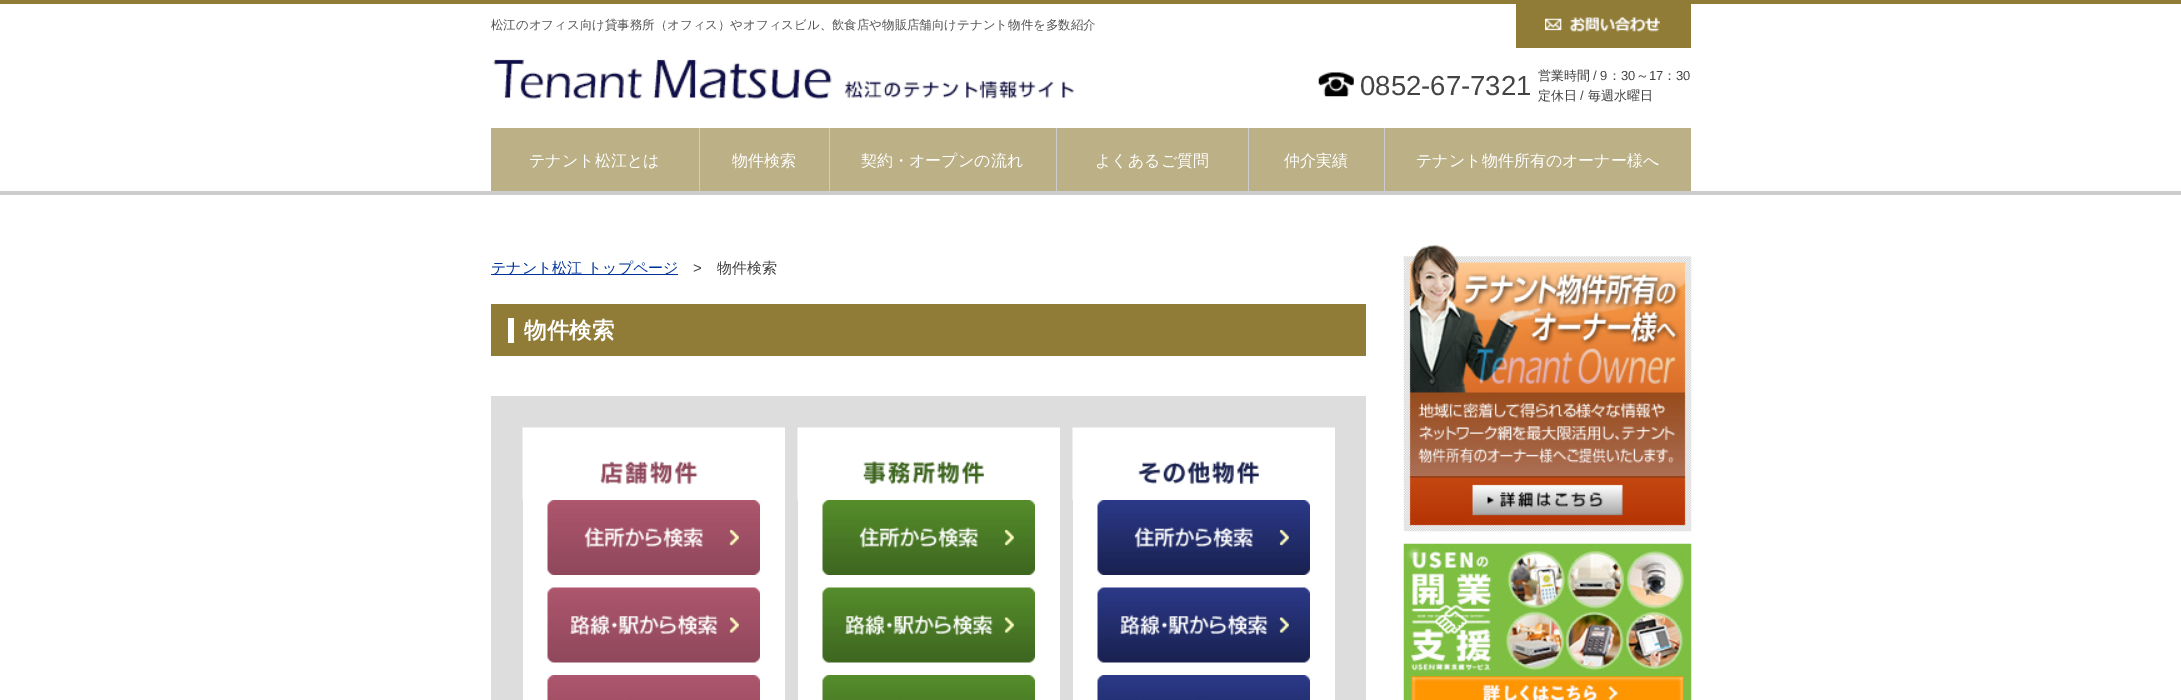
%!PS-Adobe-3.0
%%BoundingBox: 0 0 2181 700
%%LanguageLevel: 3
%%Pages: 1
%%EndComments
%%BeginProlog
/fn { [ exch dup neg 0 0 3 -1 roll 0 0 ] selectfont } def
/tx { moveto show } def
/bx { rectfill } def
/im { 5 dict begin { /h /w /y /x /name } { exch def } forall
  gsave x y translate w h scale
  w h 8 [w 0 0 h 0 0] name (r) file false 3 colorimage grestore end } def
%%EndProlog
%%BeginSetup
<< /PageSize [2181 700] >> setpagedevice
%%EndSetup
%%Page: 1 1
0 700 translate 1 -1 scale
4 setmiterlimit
1 setgray
0 0 2181 700 bx
0.565 0.486 0.216 setrgbcolor
0 0 2181 4 bx
0.8 setgray
0 191 2181 4 bx
/WenQuanYiZenHei-Medium 12.45 fn
0.329 setgray
(松江のオフィス向け貸事務所（オフィス）やオフィスビル、飲食店や物販店舗向けテナント物件を多数紹介) 491 29 tx
0.565 0.486 0.216 setrgbcolor
1516 4 175 44 bx
(image0.raw) 1545 17 115 15 im
(image1.raw) 493 59 581 40 im
(image2.raw) 1318 72 36 25 im
/LiberationSans-Regular 27.5 fn
0.267 setgray
(0852-67-7321) 1360 95 tx
/WenQuanYiZenHei-Medium 13 fn
(営業時間) 1538 80 tx
/LiberationSans-Regular 13 fn
(/ 9) 1593 80 tx
/WenQuanYiZenHei-Medium 13 fn
(：) 1608 80 tx
/LiberationSans-Regular 13 fn
(30) 1621 80 tx
/WenQuanYiZenHei-Medium 13 fn
(～) 1636 80 tx
/LiberationSans-Regular 13 fn
(17) 1649 80 tx
/WenQuanYiZenHei-Medium 13 fn
(：) 1663 80 tx
/LiberationSans-Regular 13 fn
(30) 1676 80 tx
/WenQuanYiZenHei-Medium 13 fn
(定休日) 1538 100 tx
/LiberationSans-Regular 13 fn
(/) 1580 100 tx
/WenQuanYiZenHei-Medium 13 fn
(毎週水曜日) 1588 100 tx
0.737 0.69 0.525 setrgbcolor
491 128 208 63 bx
0.8 setgray
699 128 1 63 bx
/WenQuanYiZenHei-Medium 16 fn
1 setgray
(テナント松江とは) 529 166 tx
0.737 0.69 0.525 setrgbcolor
700 128 129 63 bx
0.8 setgray
829 128 1 63 bx
1 setgray
(物件検索) 732 166 tx
0.737 0.69 0.525 setrgbcolor
830 128 418 63 bx
0.8 setgray
1056 128 1 63 bx
1 setgray
(契約・オープンの流れ) 861 166 tx
0.8 setgray
1248 128 1 63 bx
1 setgray
(よくあるご質問) 1095 166 tx
0.737 0.69 0.525 setrgbcolor
1249 128 135 63 bx
0.8 setgray
1384 128 1 63 bx
1 setgray
(仲介実績) 1284 166 tx
0.737 0.69 0.525 setrgbcolor
1385 128 306 63 bx
1 setgray
(テナント物件所有のオーナー様へ) 1416 166 tx
0 0.2 0.6 setrgbcolor
491 274 187 1 bx
/WenQuanYiZenHei-Medium 15 fn
(テナント松江 トップページ) 491 273 tx
/LiberationSans-Regular 15 fn
0.267 setgray
(>) 693 273 tx
/WenQuanYiZenHei-Medium 15 fn
(物件検索) 717 273 tx
0.565 0.486 0.216 setrgbcolor
491 304 875 52 bx
/WenQuanYiZenHei-Bold 22.5 fn
1 setgray
(物件検索) 524 338 tx
508 318 6 25 bx
0.867 setgray
491 396 875 304 bx
1 setgray
523 500 262 200 bx
(image3.raw) 522 427 263 73 im
(image4.raw) 547 500 213 75 im
(image5.raw) 547 587 213 76 im
(image6.raw) 547 675 213 25 im
798 500 262 200 bx
(image7.raw) 797 427 263 73 im
(image8.raw) 822 500 213 75 im
(image9.raw) 822 587 213 76 im
(image10.raw) 822 675 213 25 im
1073 500 262 200 bx
(image11.raw) 1072 427 263 73 im
(image12.raw) 1097 500 213 75 im
(image13.raw) 1097 587 213 76 im
(image14.raw) 1097 675 213 25 im
(image15.raw) 1403 245 289 287 im
(image16.raw) 1403 543 289 157 im
showpage
%%EOF
